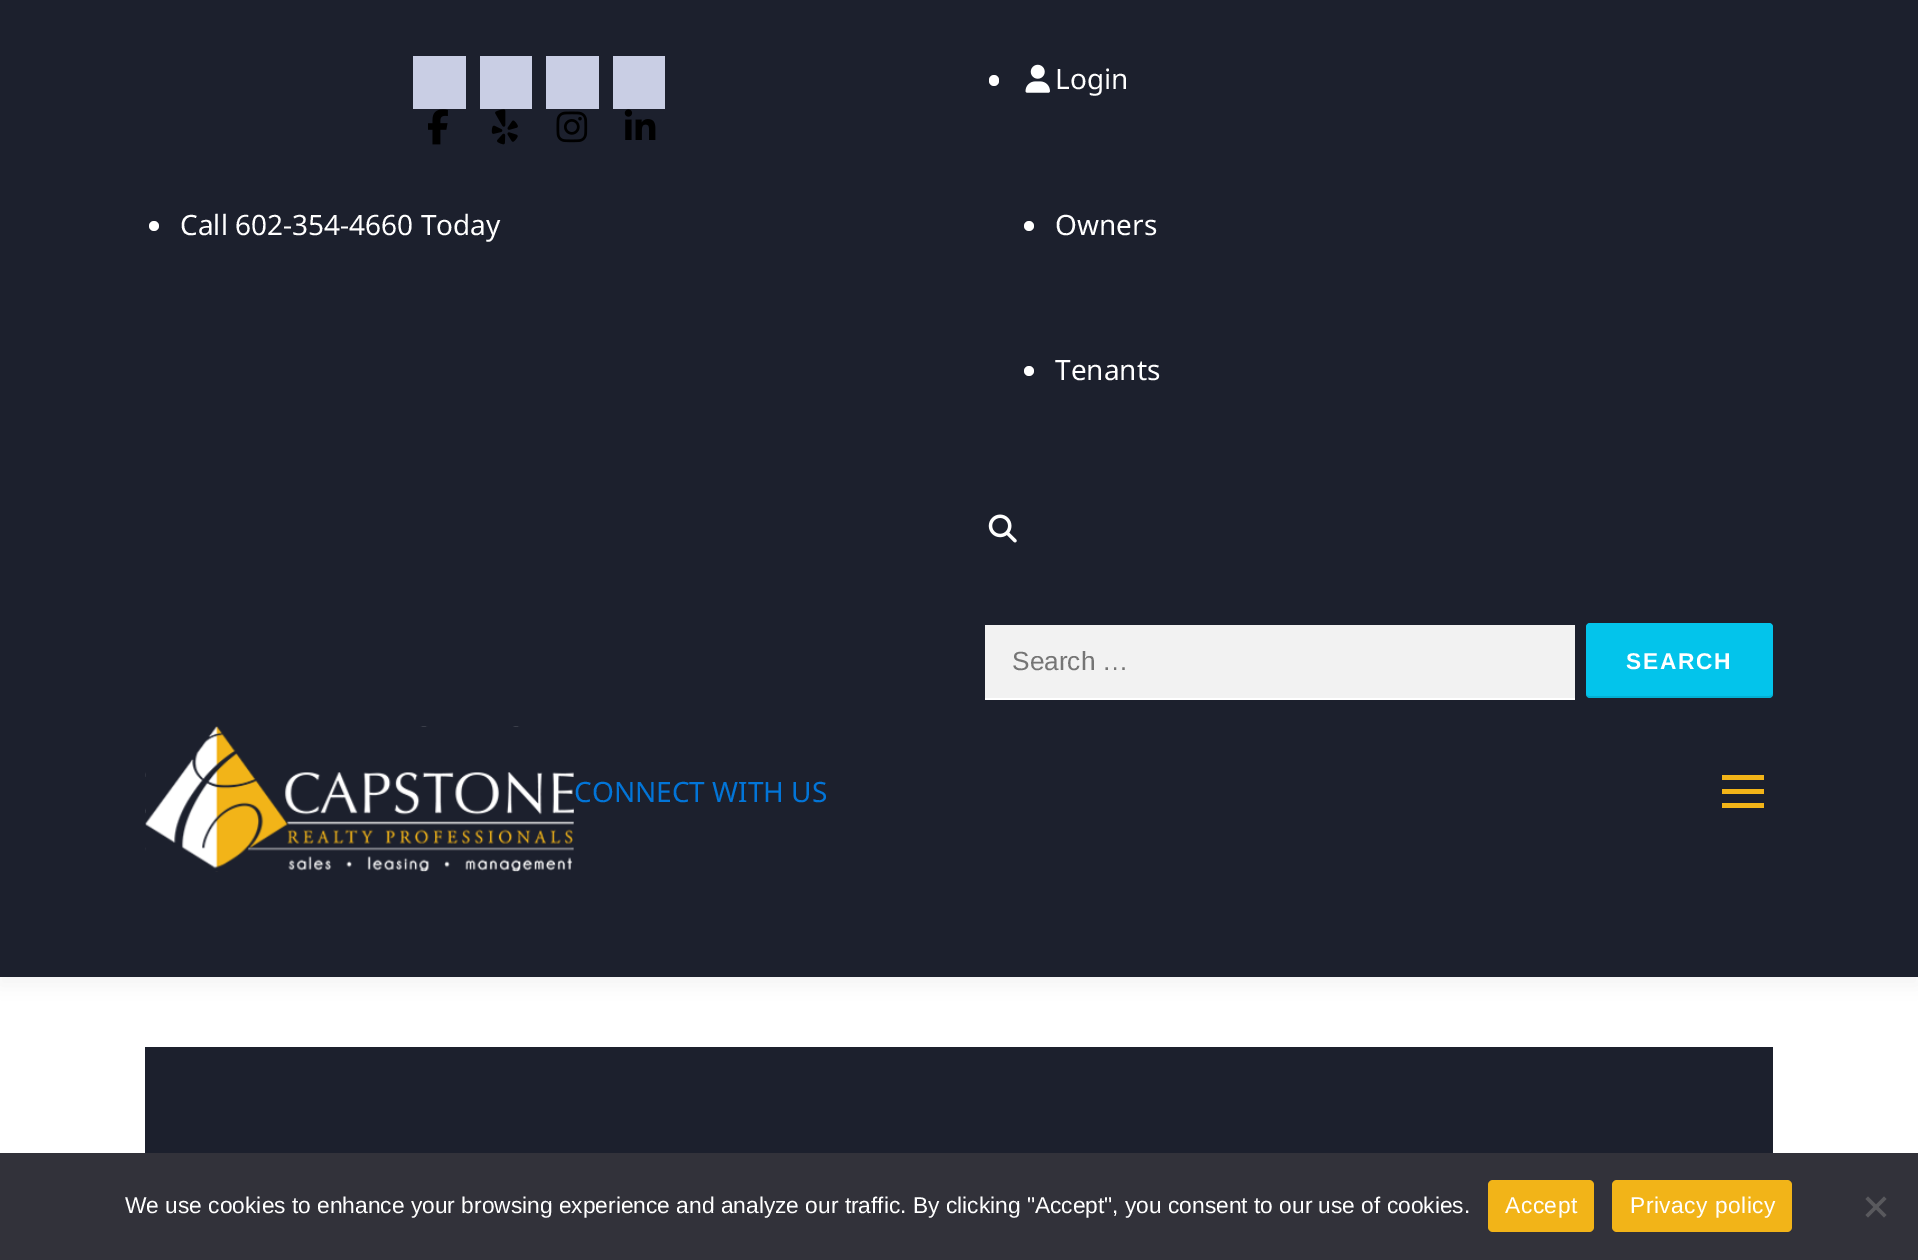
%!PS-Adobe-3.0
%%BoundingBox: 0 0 1918 1260
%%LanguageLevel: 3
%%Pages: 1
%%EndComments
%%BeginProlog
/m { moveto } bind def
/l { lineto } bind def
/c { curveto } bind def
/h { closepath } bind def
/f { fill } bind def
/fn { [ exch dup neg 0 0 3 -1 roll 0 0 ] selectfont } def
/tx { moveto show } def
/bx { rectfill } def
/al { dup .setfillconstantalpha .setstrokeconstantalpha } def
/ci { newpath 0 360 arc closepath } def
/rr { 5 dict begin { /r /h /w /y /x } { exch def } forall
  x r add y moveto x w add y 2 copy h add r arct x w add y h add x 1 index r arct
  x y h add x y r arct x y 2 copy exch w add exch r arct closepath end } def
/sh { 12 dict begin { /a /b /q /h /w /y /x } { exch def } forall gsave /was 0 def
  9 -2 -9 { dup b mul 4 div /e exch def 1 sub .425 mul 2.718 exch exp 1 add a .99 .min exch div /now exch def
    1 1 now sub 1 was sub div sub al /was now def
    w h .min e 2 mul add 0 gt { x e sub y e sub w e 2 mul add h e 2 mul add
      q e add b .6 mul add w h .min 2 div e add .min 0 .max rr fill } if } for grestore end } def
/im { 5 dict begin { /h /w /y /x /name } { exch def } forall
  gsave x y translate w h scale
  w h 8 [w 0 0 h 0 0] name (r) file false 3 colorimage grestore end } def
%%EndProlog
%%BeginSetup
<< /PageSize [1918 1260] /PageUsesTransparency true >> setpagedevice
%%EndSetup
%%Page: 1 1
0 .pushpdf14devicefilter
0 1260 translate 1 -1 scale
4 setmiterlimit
1 setgray
0 0 1918 1260 bx
0.196 setgray
0 9 1918 976 0 9 0.06 sh
0.11 0.125 0.176 setrgbcolor
0 0 1918 977 bx
0.788 0.808 0.894 setrgbcolor
413 56 53 53 bx
(image0.raw) 428 109 20 36 im
480 56 52 53 bx
(image1.raw) 491 109 27 36 im
546 56 53 53 bx
(image2.raw) 556 111 32 32 im
613 56 52 53 bx
(image3.raw) 624 109 32 31 im
1 setgray
154 226 5 ci f
/NotoSans-Regular 28 fn
(Call 602-354-4660 Today) 180 235 tx
989 75 10 11 5 rr f
(image4.raw) 1025 64 25 29 im
(Login) 1055 89 tx
1029 226 5 ci f
(Owners) 1055 235 tx
1029 371 5 ci f
(Tenants) 1055 380 tx
(image5.raw) 988 514 29 29 im
0.949 setgray
985 625 590 73 bx
1 setgray
985 698 590 2 bx
/LiberationSans-Regular 26.25 fn
0.459 setgray
(Search …) 1012 670 tx
0.012 0.769 0.922 setrgbcolor
1586 623 187 75 4 rr f
0.1 al
0 setgray
1586 693 m 1586 696 1587 698 1590 698 c 1770 698 l 1772 697 1773 695 1773 693 c 1773 695 1771 696 1769 696 c 1589 696 l 1587 696 1586 695 1586 693 c h f
/LiberationSans-Bold 22.75 fn
1 al
1 setgray
1626 669 m 1.75 0 (SEARCH) ashow
(image6.raw) 145 726 429 146 im
/NotoSans-Regular 28 fn
0.008 0.459 0.847 setrgbcolor
(CONNECT WITH US) 574 802 tx
0.949 0.706 0.094 setrgbcolor
1722 789 42 5 bx
1722 775 42 5 bx
1722 803 42 5 bx
0.11 0.125 0.176 setrgbcolor
145 1047 1628 106 bx
0.196 0.196 0.227 setrgbcolor
0 1153 1918 107 bx
/LiberationSans-Regular 22.75 fn
1 setgray
(We use cookies to enhance your browsing experience and analyze our traffic. By clicking "Accept", you consent to our use of cookies.) 125 1213 tx
0.949 0.706 0.094 setrgbcolor
1488 1180 106 52 5 rr f
1 setgray
1505 1213 m 0.5 0 (Accept) ashow
0.949 0.706 0.094 setrgbcolor
1612 1180 180 52 5 rr f
1 setgray
1630 1213 m 0.5 0 (Privacy policy) ashow
0.349 0.349 0.365 setrgbcolor
1884 1196.5 m 1886.5 1199 l 1868 1217.5 l 1865.5 1215 l h f
1865.5 1199 m 1868 1196.5 l 1886.5 1215 l 1884 1217.5 l h f
.poppdf14devicefilter showpage
%%EOF
